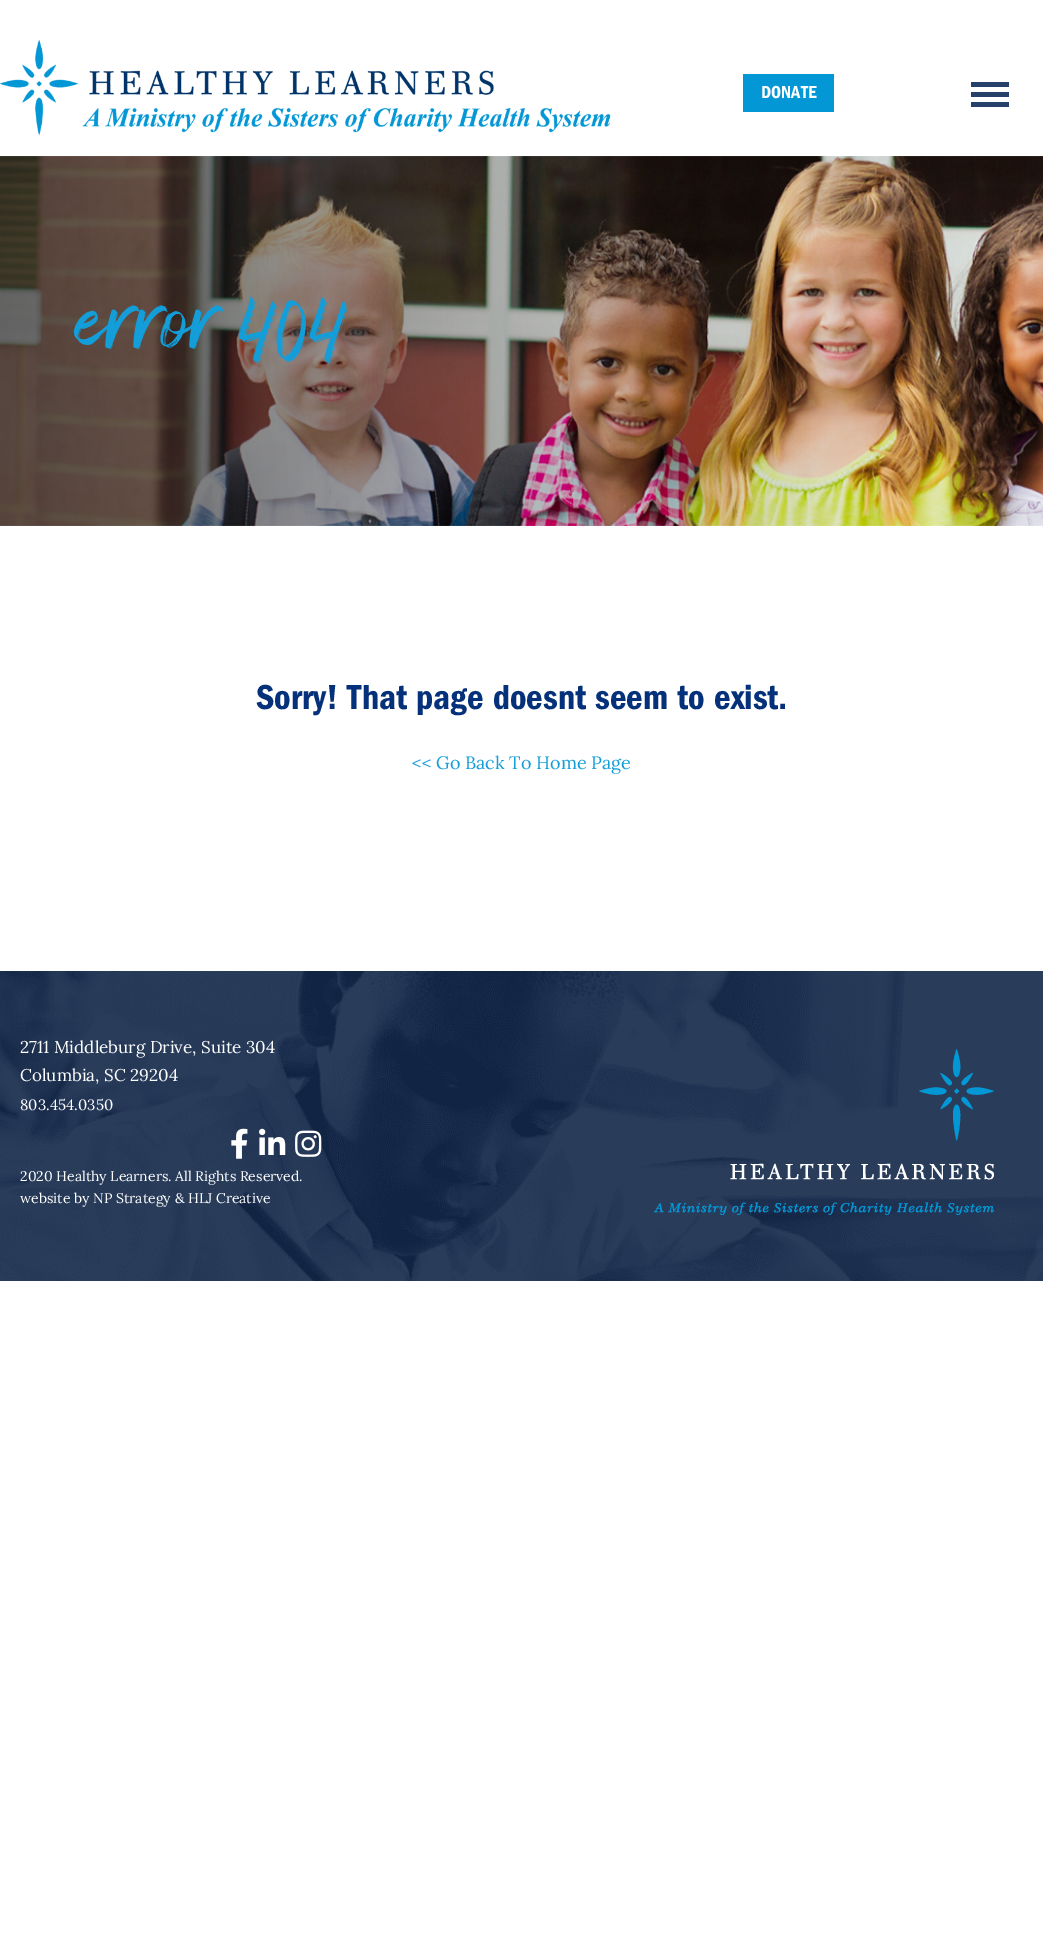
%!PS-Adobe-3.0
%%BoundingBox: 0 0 1043 1958
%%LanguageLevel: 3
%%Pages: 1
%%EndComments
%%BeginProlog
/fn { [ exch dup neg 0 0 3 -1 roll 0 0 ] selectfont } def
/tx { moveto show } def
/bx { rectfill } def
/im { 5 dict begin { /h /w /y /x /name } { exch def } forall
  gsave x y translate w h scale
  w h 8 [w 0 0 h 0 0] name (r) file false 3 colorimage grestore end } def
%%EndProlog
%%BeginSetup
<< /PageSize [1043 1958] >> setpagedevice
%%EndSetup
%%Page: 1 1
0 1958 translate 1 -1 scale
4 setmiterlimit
1 setgray
0 0 1043 1958 bx
(image0.raw) 0 40 611 95 im
0.012 0.592 0.839 setrgbcolor
743 74 91 38 bx
/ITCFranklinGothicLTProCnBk-SemiBold 18 fn
1 setgray
(DONATE) 761 98 tx
(image1.raw) 971 82 38 25 im
(image2.raw) 0 156 1043 370 im
/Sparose-Regular 70 fn
0.075 0.62 0.851 setrgbcolor
(error 404) 76 356 tx
/ITCFranklinGothicLTProCnBk-SemiBold 36 fn
0.016 0.192 0.478 setrgbcolor
(Sorry! That page doesnt seem to exist.) 256 709 tx
/Lora-Regular 18 fn
0.075 0.62 0.851 setrgbcolor
(<< Go Back To Home Page) 412 769 tx
(image3.raw) 0 971 1043 310 im
/Lora-Regular 17 fn
1 setgray
(2711 Middleburg Drive, Suite 304) 20 1053 tx
(Columbia, SC 29204) 20 1081 tx
/Lora-Regular 15 fn
(803.454.0350) 20 1110 tx
(image4.raw) 231 1128 17 31 im
(image5.raw) 259 1128 27 27 im
(image6.raw) 295 1130 27 27 im
/Lora-Regular 14 fn
(2020 Healthy Learners. All Rights Reserved.) 20 1181 tx
(website by NP Strategy & HLJ Creative) 20 1203 tx
(image7.raw) 654 1049 340 166 im
showpage
%%EOF
